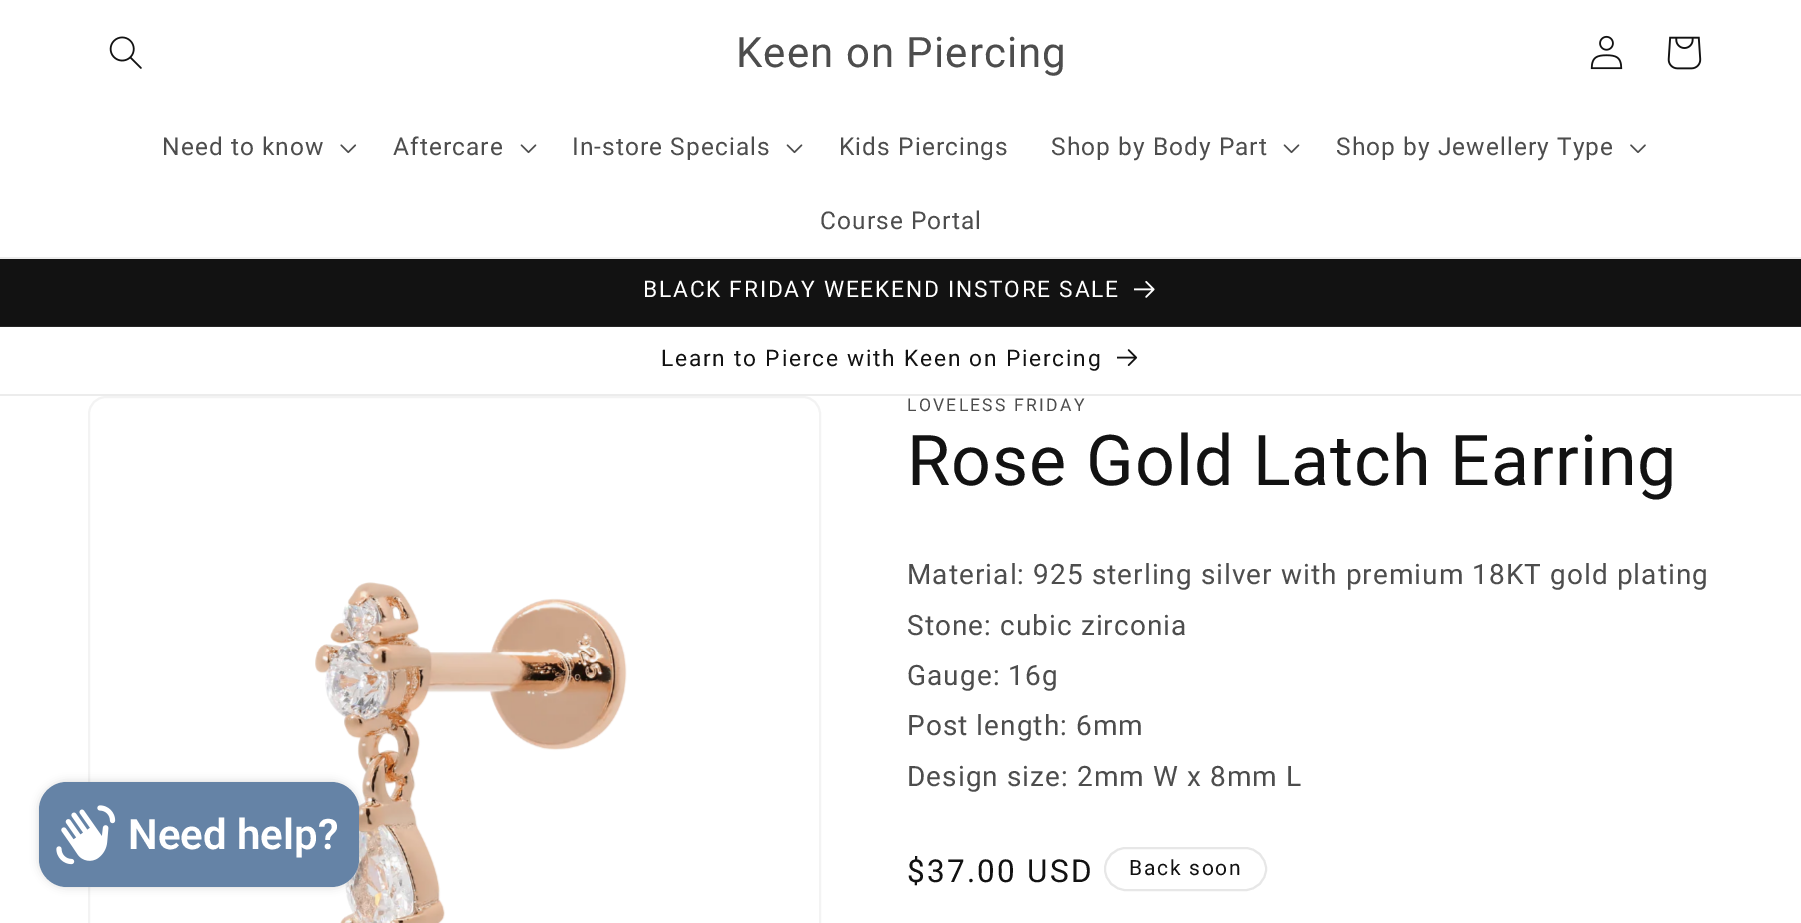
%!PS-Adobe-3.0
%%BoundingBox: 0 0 1801 923
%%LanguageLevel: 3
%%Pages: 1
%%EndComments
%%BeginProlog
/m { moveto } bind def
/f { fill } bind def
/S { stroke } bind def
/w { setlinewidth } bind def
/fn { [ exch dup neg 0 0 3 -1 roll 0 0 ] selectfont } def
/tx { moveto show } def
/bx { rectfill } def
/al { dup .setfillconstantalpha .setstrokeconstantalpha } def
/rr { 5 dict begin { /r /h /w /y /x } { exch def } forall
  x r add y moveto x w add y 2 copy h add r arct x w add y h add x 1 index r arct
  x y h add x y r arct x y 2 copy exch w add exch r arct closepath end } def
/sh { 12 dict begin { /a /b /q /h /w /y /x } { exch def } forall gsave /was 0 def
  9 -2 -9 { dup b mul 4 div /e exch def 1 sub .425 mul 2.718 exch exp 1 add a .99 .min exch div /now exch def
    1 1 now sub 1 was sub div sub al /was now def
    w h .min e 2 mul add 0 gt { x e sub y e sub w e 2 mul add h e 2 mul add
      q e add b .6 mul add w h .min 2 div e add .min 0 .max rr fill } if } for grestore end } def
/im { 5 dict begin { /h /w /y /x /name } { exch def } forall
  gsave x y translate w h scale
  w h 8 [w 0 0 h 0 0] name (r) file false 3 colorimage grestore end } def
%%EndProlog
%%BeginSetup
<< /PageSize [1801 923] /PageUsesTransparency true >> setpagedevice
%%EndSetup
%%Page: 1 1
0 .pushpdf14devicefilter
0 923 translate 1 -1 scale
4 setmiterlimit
1 setgray
0 0 1801 923 bx
0.925 setgray
0 257 1801 2 bx
(image0.raw) 109 36 33 33 im
/Roboto-Regular 42 fn
0.302 setgray
736 67 m 1.05 0 (Keen on Piercing) ashow
(image1.raw) 1590 35 33 35 im
(image2.raw) 1667 36 35 34 im
/Roboto-Regular 24.5 fn
162 155 m 1.05 0 (Need to know) ashow
(image3.raw) 340 144 17 10 im
393 155 m 1.05 0 (Aftercare) ashow
(image4.raw) 520 144 17 10 im
572 155 m 1.05 0 (In-store Specials) ashow
(image4.raw) 786 144 17 10 im
839 155 m 1.05 0 (Kids Piercings) ashow
1051 155 m 1.05 0 (Shop by Body Part) ashow
(image4.raw) 1283 144 17 10 im
1336 155 m 1.05 0 (Shop by Jewellery Type) ashow
(image5.raw) 1630 144 16 9 im
820 229 m 1.05 0 (Course Portal) ashow
0.071 setgray
0 259 1801 67 bx
0.145 setgray
0 326 1801 1 bx
/Roboto-Regular 22.75 fn
1 setgray
643 297 m 1.75 0 (BLACK FRIDAY WEEKEND INSTORE SALE) ashow
(image6.raw) 1134 281 21 17 im
0.925 setgray
0 394 1801 2 bx
0.071 setgray
661 366 m 1.75 0 (Learn to Pierce with Keen on Piercing) ashow
(image7.raw) 1117 349 21 17 im
0.953 setgray
2 w
89 397 731 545 17 rr S
(image9.raw) 315 582 312 341 im
0 setgray
39 782 320 105 28 4.5 0.15 sh
0.396 0.514 0.651 setrgbcolor
39 782 320 105 28 rr f
(image8.raw) 56 805 60 60 im
/Roboto-SemiBold 42 fn
1 setgray
(Need help?) 128 849 tx
/Roboto-Regular 17.5 fn
0.302 setgray
907 411 m 2.25 0 (LOVELESS FRIDAY) ashow
/Roboto-Regular 70 fn
0.071 setgray
907 485 m 1.05 0 (Rose Gold Latch Earring) ashow
/Roboto-Regular 28 fn
0.302 setgray
907 584 m 1.05 0 (Material: 925 sterling silver with premium 18KT gold plating) ashow
907 635 m 1.05 0 (Stone: cubic zirconia) ashow
907 685 m 1.05 0 (Gauge: 16g) ashow
907 735 m 1.05 0 (Post length: 6mm) ashow
907 786 m 1.05 0 (Design size: 2mm W x 8mm L) ashow
/Roboto-Regular 31.5 fn
0.071 setgray
907 882 m 2.25 0 ($37.00 USD) ashow
0.906 setgray
1105 848 161 42 21 rr S
/Roboto-Regular 21 fn
0.071 setgray
1129 875 m 1.75 0 (Back soon) ashow
.poppdf14devicefilter showpage
%%EOF
